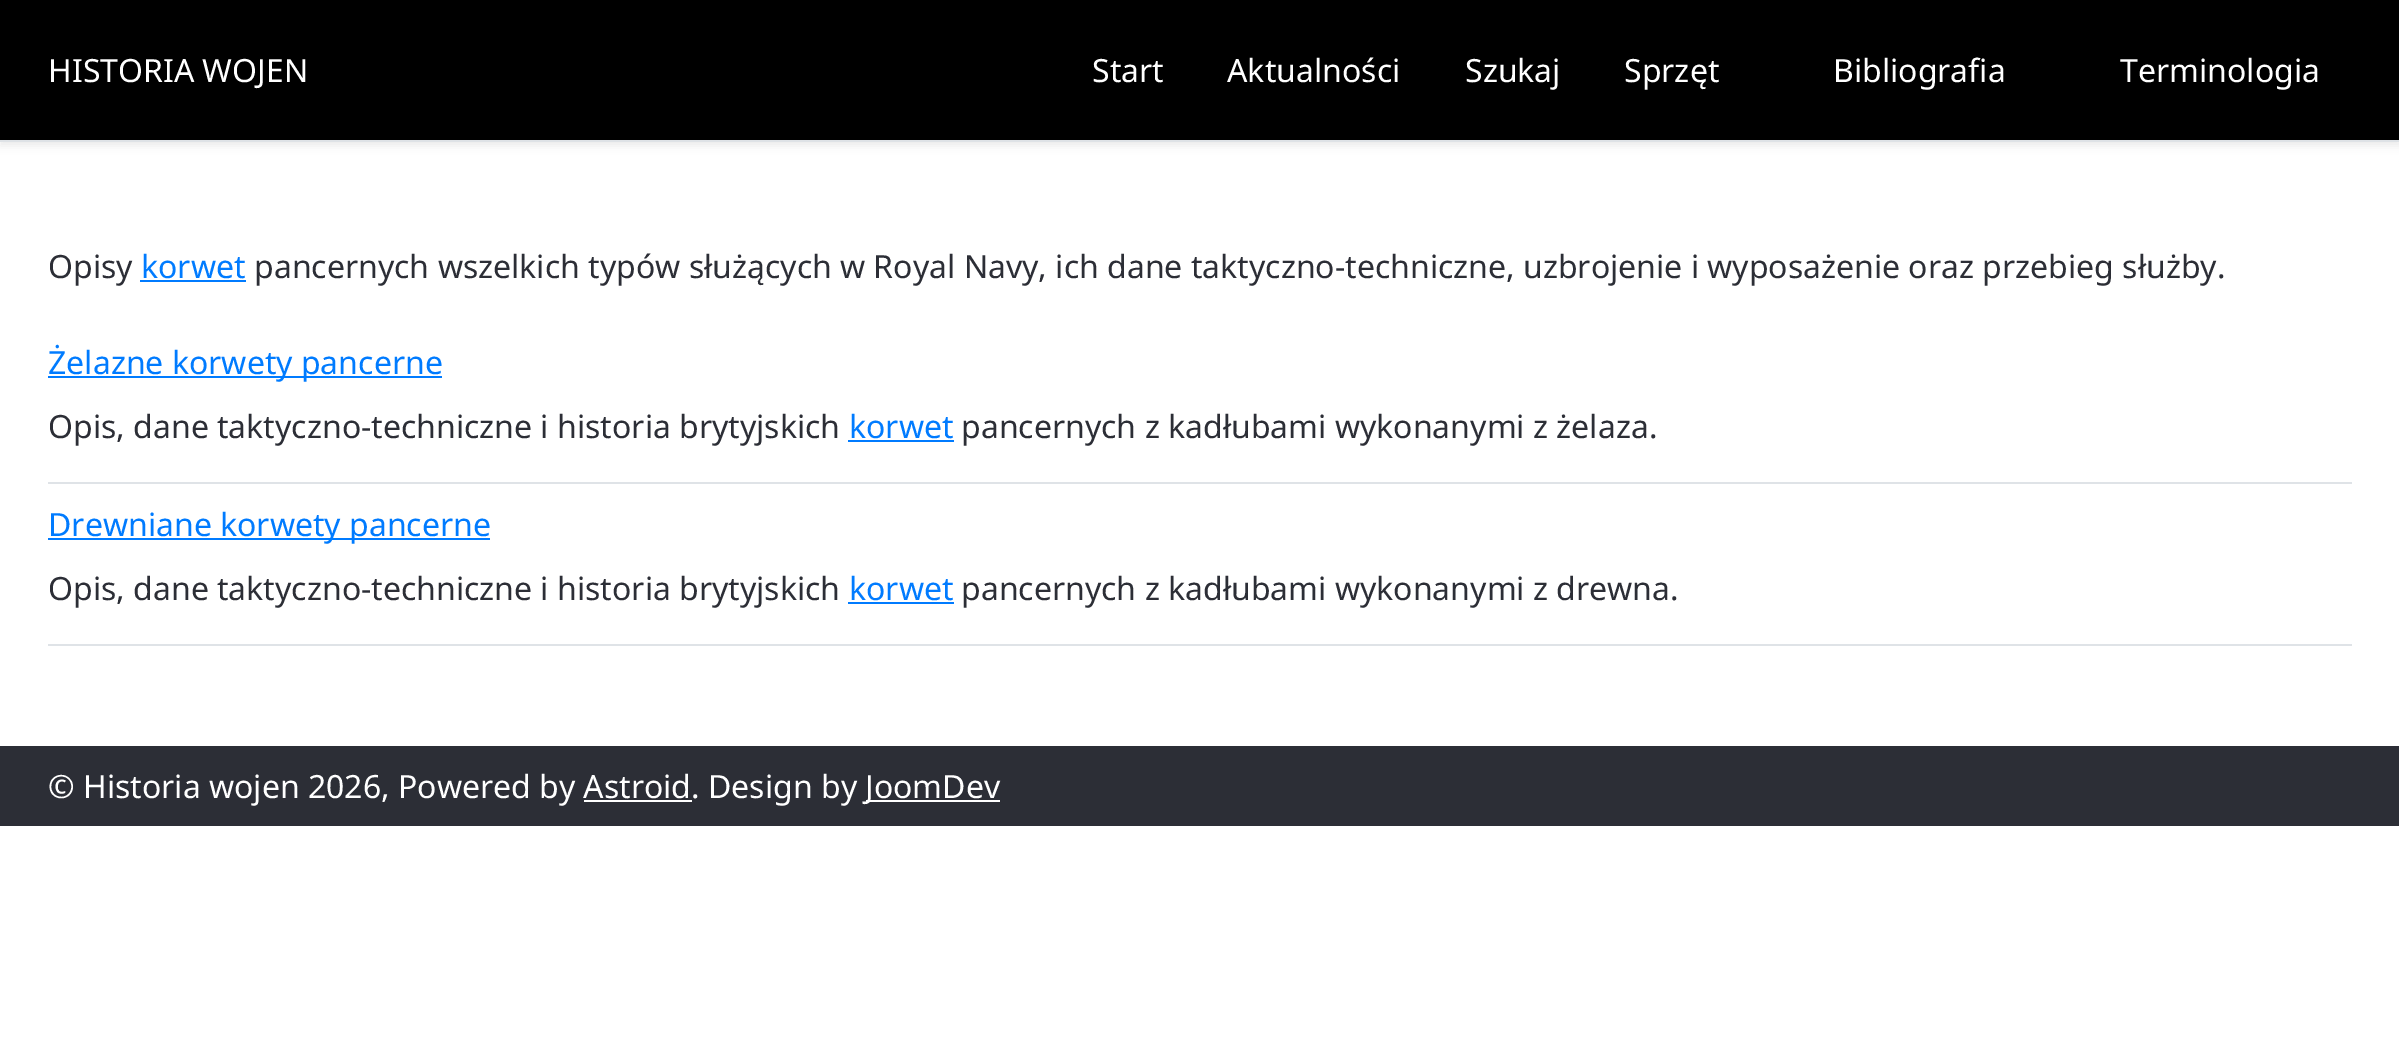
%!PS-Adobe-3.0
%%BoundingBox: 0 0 2399 1048
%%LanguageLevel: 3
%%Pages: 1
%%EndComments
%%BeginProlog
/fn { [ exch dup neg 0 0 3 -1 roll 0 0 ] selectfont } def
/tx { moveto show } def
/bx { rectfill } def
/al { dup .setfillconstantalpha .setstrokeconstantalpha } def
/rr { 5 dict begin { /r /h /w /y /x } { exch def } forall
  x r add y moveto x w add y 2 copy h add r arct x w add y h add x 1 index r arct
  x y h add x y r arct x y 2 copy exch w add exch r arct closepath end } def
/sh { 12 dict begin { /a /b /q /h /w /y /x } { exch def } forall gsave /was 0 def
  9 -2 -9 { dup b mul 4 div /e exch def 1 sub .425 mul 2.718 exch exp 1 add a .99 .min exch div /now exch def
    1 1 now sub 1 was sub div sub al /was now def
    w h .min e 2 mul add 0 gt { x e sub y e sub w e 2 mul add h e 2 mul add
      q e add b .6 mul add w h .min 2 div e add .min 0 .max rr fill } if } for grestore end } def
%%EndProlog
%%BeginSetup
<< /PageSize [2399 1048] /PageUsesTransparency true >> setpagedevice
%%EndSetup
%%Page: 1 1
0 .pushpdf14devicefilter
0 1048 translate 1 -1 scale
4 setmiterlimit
1 setgray
0 0 2399 1048 bx
0 setgray
0 4 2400 142 0 4 0.07 sh
0 0 2399 140 bx
0.871 0.886 0.902 setrgbcolor
0 140 2399 2 bx
/NotoSans-Regular 32 fn
1 setgray
(HISTORIA WOJEN) 48 82 tx
(Start) 1092 82 tx
(Aktualności) 1227 82 tx
(Szukaj) 1465 82 tx
(Sprzęt) 1624 82 tx
(Bibliografia) 1833 82 tx
(Terminologia) 2120 82 tx
0.173 0.18 0.212 setrgbcolor
(Opisy) 48 278 tx
0 0.482 1 setrgbcolor
(korwet) 141 278 tx
140 280 106 2 bx
0.173 0.18 0.212 setrgbcolor
(pancernych wszelkich typów służących w Royal Navy, ich dane taktyczno-techniczne, uzbrojenie i wyposażenie oraz przebieg służby.) 254 278 tx
0.875 0.89 0.906 setrgbcolor
48 482 2304 2 bx
0 0.482 1 setrgbcolor
48 376 394 2 bx
(Żelazne korwety pancerne) 48 374 tx
0.173 0.18 0.212 setrgbcolor
(Opis, dane taktyczno-techniczne i historia brytyjskich) 48 438 tx
0 0.482 1 setrgbcolor
(korwet) 849 438 tx
848 440 106 2 bx
0.173 0.18 0.212 setrgbcolor
(pancernych z kadłubami wykonanymi z żelaza.) 961 438 tx
0.875 0.89 0.906 setrgbcolor
48 644 2304 2 bx
0 0.482 1 setrgbcolor
48 538 442 2 bx
(Drewniane korwety pancerne) 48 536 tx
0.173 0.18 0.212 setrgbcolor
(Opis, dane taktyczno-techniczne i historia brytyjskich) 48 600 tx
0 0.482 1 setrgbcolor
(korwet) 849 600 tx
848 602 106 2 bx
0.173 0.18 0.212 setrgbcolor
(pancernych z kadłubami wykonanymi z drewna.) 961 600 tx
0 746 2399 80 bx
1 setgray
(© Historia wojen 2026, Powered by Astroid. Design by) 48 798 tx
866 800 134 2 bx
(JoomDev) 865 798 tx
584 800 108 2 bx
.poppdf14devicefilter showpage
%%EOF
